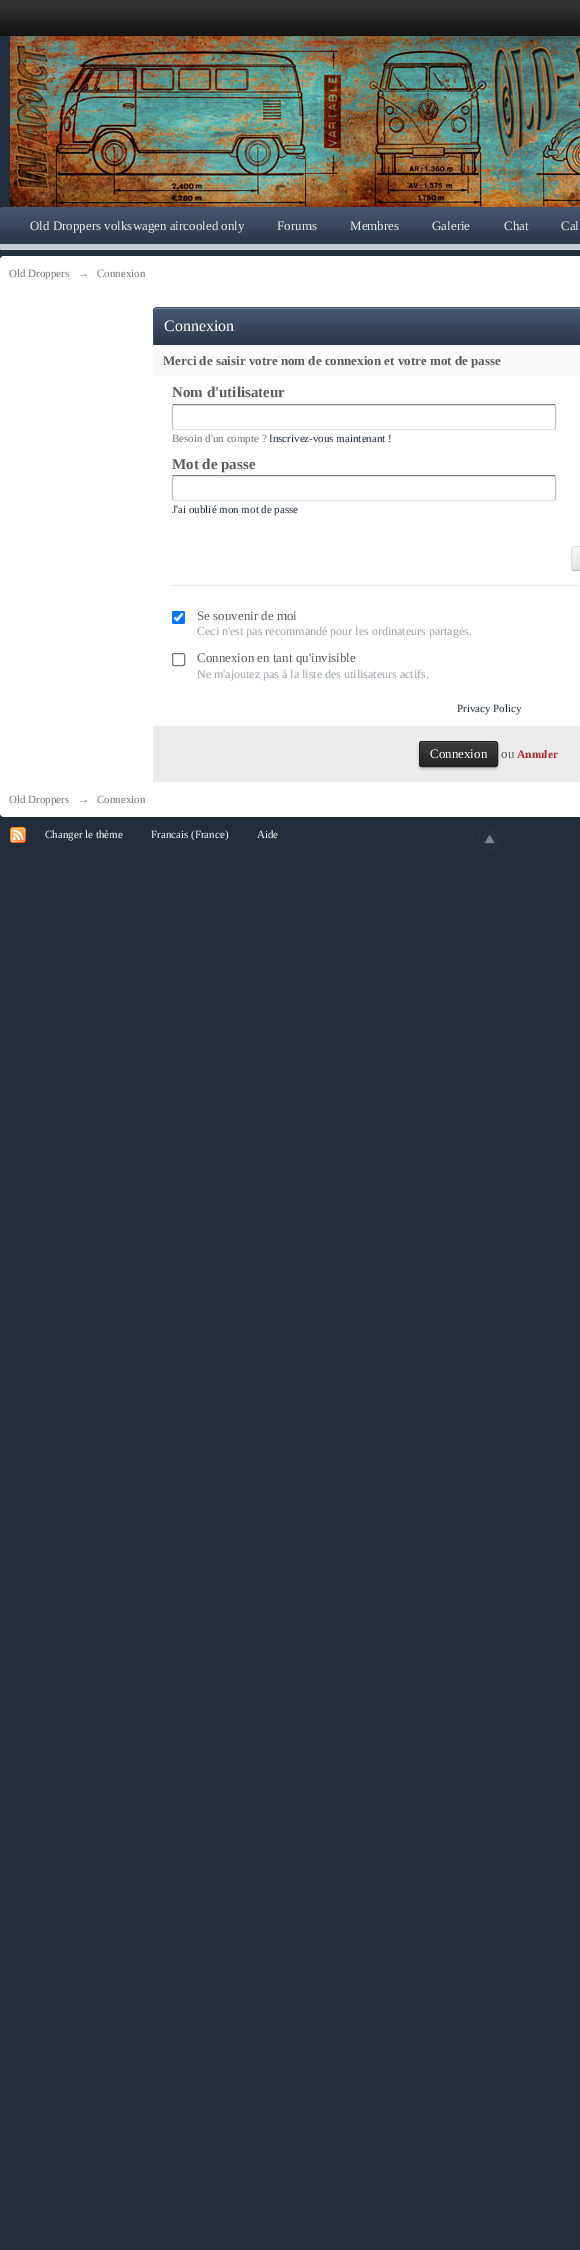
%!PS-Adobe-3.0
%%BoundingBox: 0 0 580 2250
%%LanguageLevel: 3
%%Pages: 1
%%EndComments
%%BeginProlog
/m { moveto } bind def
/l { lineto } bind def
/c { curveto } bind def
/h { closepath } bind def
/f { fill } bind def
/S { stroke } bind def
/q { gsave } bind def
/Q { grestore } bind def
/w { setlinewidth } bind def
/fn { [ exch dup neg 0 0 3 -1 roll 0 0 ] selectfont } def
/tx { moveto show } def
/bx { rectfill } def
/al { dup .setfillconstantalpha .setstrokeconstantalpha } def
/ci { newpath 0 360 arc closepath } def
/rr { 5 dict begin { /r /h /w /y /x } { exch def } forall
  x r add y moveto x w add y 2 copy h add r arct x w add y h add x 1 index r arct
  x y h add x y r arct x y 2 copy exch w add exch r arct closepath end } def
/sh { 12 dict begin { /a /b /q /h /w /y /x } { exch def } forall gsave /was 0 def
  9 -2 -9 { dup b mul 4 div /e exch def 1 sub .425 mul 2.718 exch exp 1 add a .99 .min exch div /now exch def
    1 1 now sub 1 was sub div sub al /was now def
    w h .min e 2 mul add 0 gt { x e sub y e sub w e 2 mul add h e 2 mul add
      q e add b .6 mul add w h .min 2 div e add .min 0 .max rr fill } if } for grestore end } def
/im { 5 dict begin { /h /w /y /x /name } { exch def } forall
  gsave x y translate w h scale
  w h 8 [w 0 0 h 0 0] name (r) file false 3 colorimage grestore end } def
%%EndProlog
%%BeginSetup
<< /PageSize [580 2250] /PageUsesTransparency true >> setpagedevice
%%EndSetup
%%Page: 1 1
0 .pushpdf14devicefilter
0 2250 translate 1 -1 scale
4 setmiterlimit
0.133 0.18 0.243 setrgbcolor
0 0 580 2250 bx
0.196 setgray
0 0 580 8 bx
(image0.raw) 0 8 580 28 im
(image1.raw) 10 36 570 171 im
0.153 0.204 0.278 setrgbcolor
0 207 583 44 3 rr f
(image2.raw) 0 207 580 43 im
/LiberationSerif-Regular 13 fn
0.91 0.914 0.922 setrgbcolor
(Old Droppers volkswagen aircooled only) 30 230 tx
(Forums) 277 230 tx
(Membres) 350 230 tx
(Galerie) 432 230 tx
(Chat) 504 230 tx
(Cal) 561 230 tx
1 setgray
0 256 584 561 4 rr f
/LiberationSerif-Regular 11 fn
0.467 setgray
(Old Droppers) 9 277 tx
(→) 78 277 tx
(Connexion) 97 277 tx
(image3.raw) 153 308 427 37 im
0.455 0.518 0.612 setrgbcolor
157 309 m 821 309 l 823 309 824 310 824 312 c 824 311 l 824 309 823 308 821 308 c 157 308 l 155 308 154 309 154 311 c 154 312 l 154 310 155 309 157 309 c h f
0.255 0.314 0.396 setrgbcolor
157 307 m 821 307 l 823 307 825 309 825 311 c 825 345 l 153 345 l 153 311 l 153 309 155 307 157 307 c h 157 308 m 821 308 l 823 308 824 309 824 311 c 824 345 l 154 345 l 154 311 l 154 309 155 308 157 308 c h eofill
/LiberationSerif-Regular 16 fn
1 setgray
(Connexion) 164 331 tx
0.98 setgray
153 345 427 31 bx
/LiberationSerif-Bold 13 fn
0.353 setgray
(Merci de saisir votre nom de connexion et votre mot de passe) 163 365 tx
/LiberationSerif-Bold 15 fn
(Nom d'utilisateur) 172 397 tx
0.518 setgray
173 405 m 174 404.5 l 554 404.5 l 555 405 l S
0.757 setgray
555 405 m 556 406 556 428 555 429 c S
0.882 setgray
555 429 m 554 429.5 l 174 429.5 l 173 429 l S
0.757 setgray
173 429 m 172 428 172 406 173 405 c S
/LiberationSerif-Regular 11 fn
0.467 setgray
(Besoin d'un compte ?) 172 442 tx
0.133 0.18 0.243 setrgbcolor
(Inscrivez-vous maintenant !) 269 442 tx
/LiberationSerif-Bold 15 fn
0.353 setgray
(Mot de passe) 172 469 tx
0.518 setgray
173 476 m 174 475.5 l 554 475.5 l 555 476 l S
0.757 setgray
555 476 m 556 477 556 499 555 500 c S
0.882 setgray
555 500 m 554 500.5 l 174 500.5 l 173 500 l S
0.757 setgray
173 500 m 172 499 172 477 173 476 c S
/LiberationSerif-Regular 11 fn
0.133 0.18 0.243 setrgbcolor
(J'ai oublié mon mot de passe) 172 513 tx
0.702 setgray
571 567 m 571 569 572 571 574 571 c 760 571 l 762 571 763 569 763 567 c 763 569 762 570 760 570 c 574 570 l 572 570 571 569 571 567 c h f
q
571 546 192 24 3 rr clip newpath
q 571 547 m 580 547 l 580 569 l 571 569 l h clip newpath
<< /ShadingType 2 /ColorSpace /DeviceRGB /Coords [572 547 572 569] /Extend [true true] /Function << /FunctionType 2 /Domain [0 1] /C0 [0.965 0.965 0.965] /C1 [0.898 0.898 0.898] /N 1 >> >> shfill Q
Q
1 setgray
574 548 m 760 548 l 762 549 l 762 550 l 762 549 l 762 548 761 547 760 547 c 574 547 l 573 547 572 548 572 549 c 572 550 l 572 549 573 548 574 548 c h f
0.859 setgray
571.5 546.5 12 23 2.5 rr S
0.922 setgray
170 585 410 1 bx
0 0.459 1 setrgbcolor
172 611 13 13 2 rr f
1 setgray
2.1 w
174.5 617.5 m 177 620 l 182.5 613.5 l S
/LiberationSerif-Regular 13 fn
0.353 setgray
(Se souvenir de moi) 197 620 tx
/LiberationSerif-Regular 12 fn
0.604 0.631 0.659 setrgbcolor
(Ceci n'est pas recommandé pour les ordinateurs partagés.) 197 635 tx
0.463 setgray
1 w
172.5 653.5 12 12 1.5 rr S
/LiberationSerif-Regular 13 fn
0.353 setgray
(Connexion en tant qu'invisible) 197 662 tx
/LiberationSerif-Regular 12 fn
0.604 0.631 0.659 setrgbcolor
(Ne m'ajoutez pas à la liste des utilisateurs actifs.) 197 678 tx
/LiberationSerif-Regular 11 fn
0.133 0.18 0.243 setrgbcolor
(Privacy Policy) 457 712 tx
0.925 setgray
153 726 427 56 bx
0 setgray
419 743 79 26 3 1.5 0.2 sh
(image4.raw) 419 742 79 25 im
0.361 setgray
422 743 m 495 743 l 496 743 497 744 497 745 c 497 739 486 742 483 742 c 434 742 l 431 742 420 739 420 745 c 420 744 421 743 422 743 c h f
0.129 setgray
419.5 741.5 78 25 2.5 rr S
/LiberationSerif-Regular 13 fn
1 setgray
(Connexion) 430 758 tx
0.353 setgray
(ou) 501 758 tx
/LiberationSerif-Bold 11.5 fn
0.678 0.161 0.188 setrgbcolor
(Annuler) 517 758 tx
/LiberationSerif-Regular 11 fn
0.467 setgray
(Old Droppers) 9 803 tx
(→) 78 803 tx
(Connexion) 97 803 tx
(image5.raw) 10 827 16 16 im
0.961 setgray
(Changer le thème) 45 838 tx
(Francais \(France\)) 151 838 tx
(Aide) 257 838 tx
0.141 0.188 0.259 setrgbcolor
490 839 12 ci f
(image6.raw) 485 835 10 9 im
.poppdf14devicefilter showpage
%%EOF
